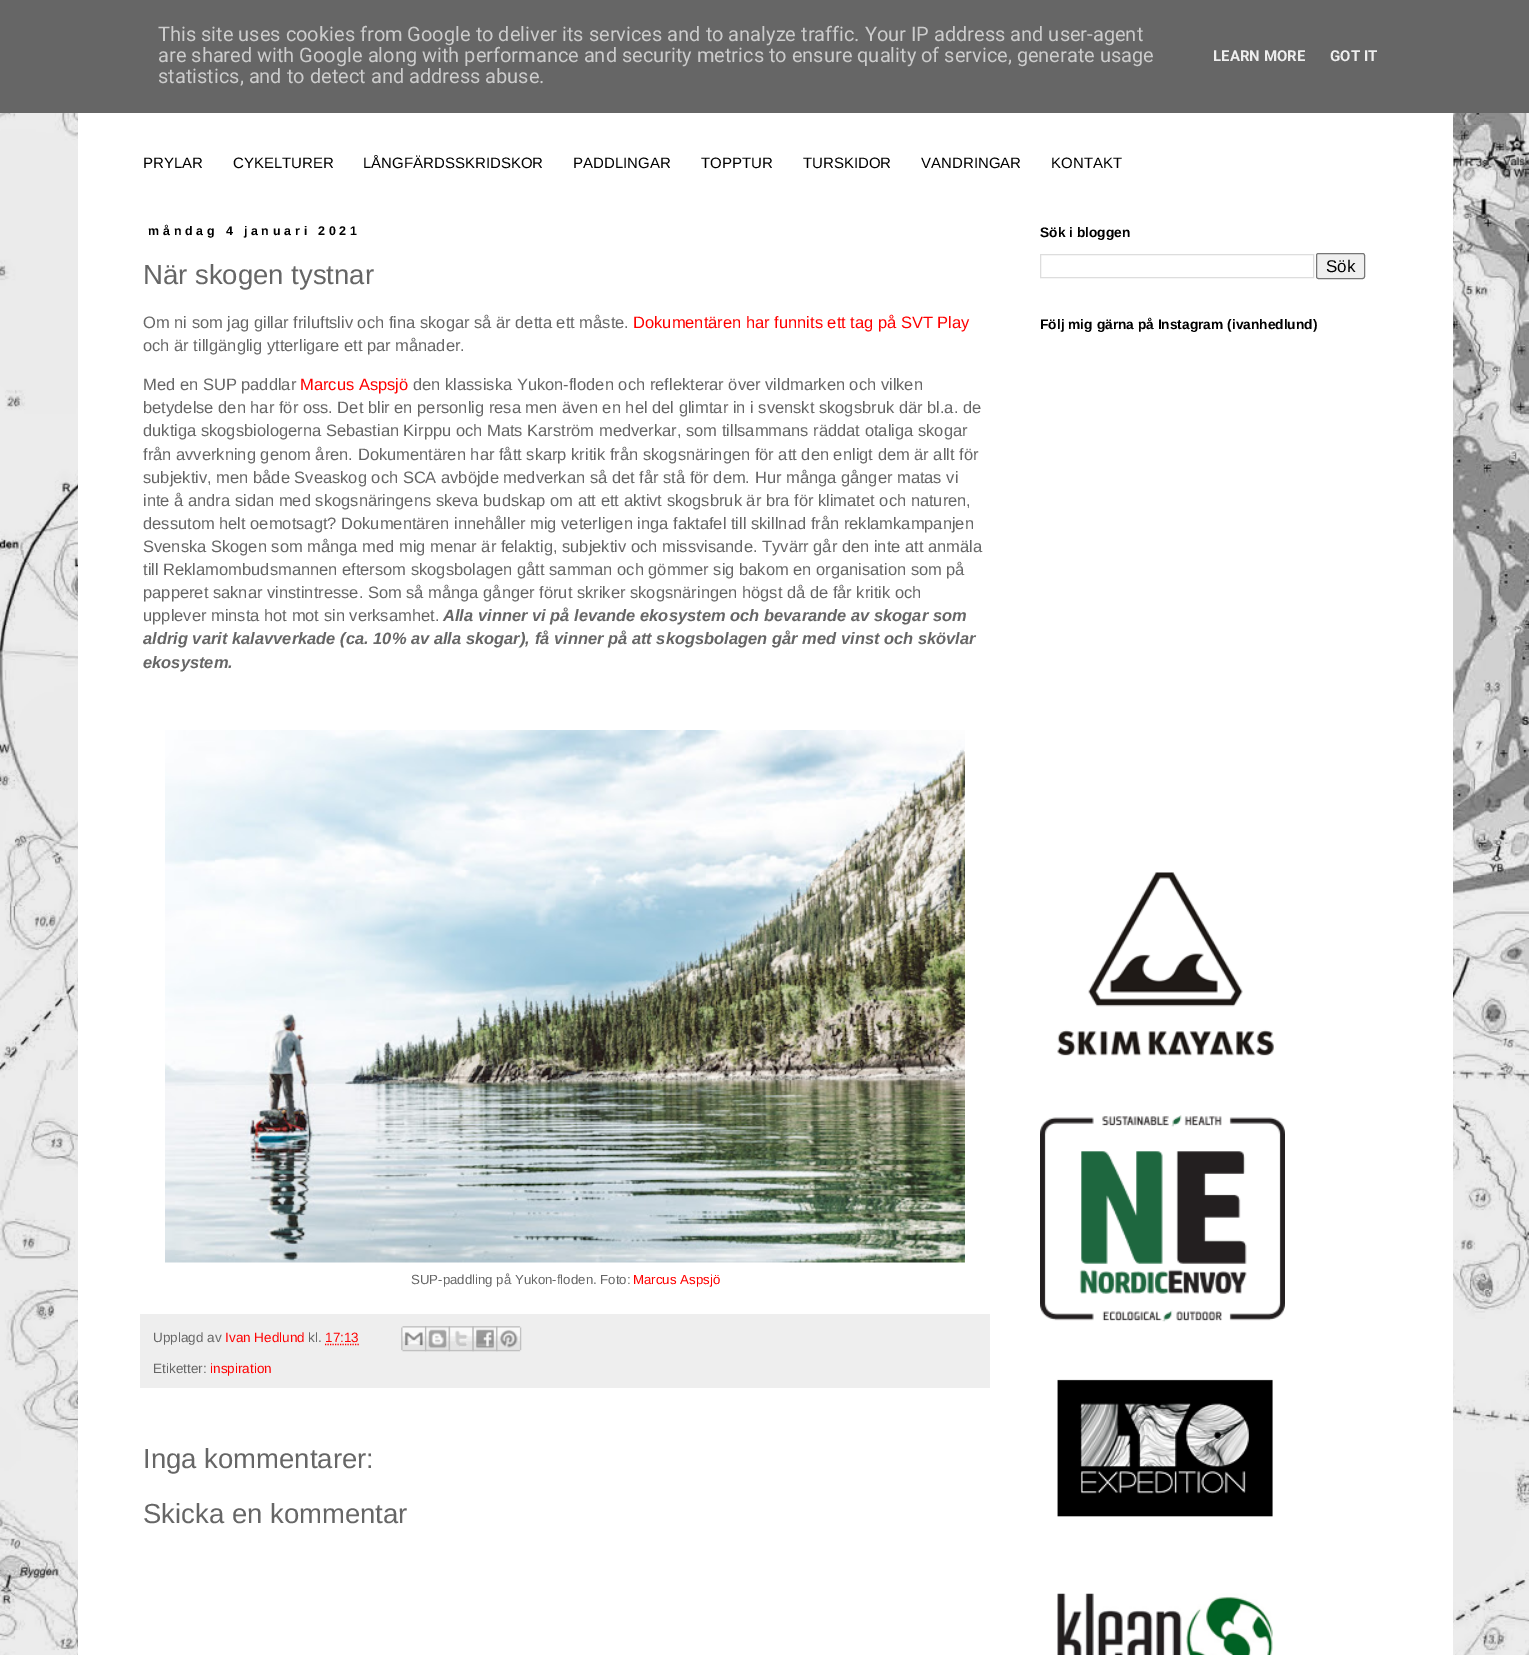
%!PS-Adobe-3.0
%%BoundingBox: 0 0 1529 1655
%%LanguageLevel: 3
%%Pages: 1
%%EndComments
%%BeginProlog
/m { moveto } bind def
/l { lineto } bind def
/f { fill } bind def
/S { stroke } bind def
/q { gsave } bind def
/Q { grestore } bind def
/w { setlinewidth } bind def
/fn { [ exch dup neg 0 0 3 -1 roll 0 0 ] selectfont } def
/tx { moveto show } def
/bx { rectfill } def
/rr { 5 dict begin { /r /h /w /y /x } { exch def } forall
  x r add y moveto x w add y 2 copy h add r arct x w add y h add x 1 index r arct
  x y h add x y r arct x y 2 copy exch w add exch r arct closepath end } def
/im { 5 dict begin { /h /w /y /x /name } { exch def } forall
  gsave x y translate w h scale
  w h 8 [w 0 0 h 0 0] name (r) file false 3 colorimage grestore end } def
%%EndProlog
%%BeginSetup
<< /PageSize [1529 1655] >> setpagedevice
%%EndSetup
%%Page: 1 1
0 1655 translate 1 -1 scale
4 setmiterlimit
1 setgray
0 0 1529 1655 bx
(image0.raw) 0 500 1529 1155 im
0.4 setgray
0 0 1529 113 bx
/Roboto-Regular 20 fn
0.8 setgray
(This site uses cookies from Google to deliver its services and to analyze traffic. Your IP address and user-agent) 158 41 tx
(are shared with Google along with performance and security metrics to ensure quality of service, generate usage) 158 62 tx
(statistics, and to detect and address abuse.) 158 83 tx
/Roboto-Bold 15 fn
0.933 setgray
(LEARN MORE) 1213 61 tx
(GOT IT) 1330 61 tx
(image1.raw) 0 113 1529 387 im
1 setgray
78 113 1375 1542 bx
/LiberationSans-Regular 15 fn
0 setgray
(PRYLAR) 143 168 tx
(CYKELTURER) 233 168 tx
(LÅNGFÄRDSSKRIDSKOR) 363 168 tx
(PADDLINGAR) 573 168 tx
(TOPPTUR) 701 168 tx
(TURSKIDOR) 803 168 tx
(VANDRINGAR) 921 168 tx
(KONTAKT) 1051 168 tx
/LiberationSans-Bold 12.5 fn
148 235 m 3.75 0 (måndag 4 januari 2021) ashow
/LiberationSans-Regular 27.5 fn
0.4 setgray
(När skogen tystnar) 143 284 tx
/LiberationSans-Regular 16.5 fn
(Om ni som jag gillar friluftsliv och fina skogar så är detta ett måste.) 143 328 tx
1 0 0 setrgbcolor
(Dokumentären har funnits ett tag på SVT Play) 633 328 tx
0.4 setgray
(och är tillgänglig ytterligare ett par månader.) 143 351 tx
(Med en SUP paddlar) 143 390 tx
1 0 0 setrgbcolor
(Marcus Aspsjö) 300 390 tx
0.4 setgray
(den klassiska Yukon-floden och reflekterar över vildmarken och vilken) 413 390 tx
(betydelse den har för oss. Det blir en personlig resa men även en hel del glimtar in i svenskt skogsbruk där bl.a. de) 143 413 tx
(duktiga skogsbiologerna Sebastian Kirppu och Mats Karström medverkar, som tillsammans räddat otaliga skogar) 143 436 tx
(från avverkning genom åren. Dokumentären har fått skarp kritik från skogsnäringen för att den enligt dem är allt för) 143 460 tx
(subjektiv, men både Sveaskog och SCA avböjde medverkan så det får stå för dem. Hur många gånger matas vi) 143 483 tx
(inte å andra sidan med skogsnäringens skeva budskap om att ett aktivt skogsbruk är bra för klimatet och naturen,) 143 506 tx
(dessutom helt oemotsagt? Dokumentären innehåller mig veterligen inga faktafel till skillnad från reklamkampanjen) 143 529 tx
(Svenska Skogen som många med mig menar är felaktig, subjektiv och missvisande. Tyvärr går den inte att anmäla) 143 552 tx
(till Reklamombudsmannen eftersom skogsbolagen gått samman och gömmer sig bakom en organisation som på) 143 575 tx
(papperet saknar vinstintresse. Som så många gånger förut skriker skogsnäringen högst då de får kritik och) 143 598 tx
(upplever minsta hot mot sin verksamhet.) 143 621 tx
/LiberationSans-BoldItalic 16.5 fn
(Alla vinner vi på levande ekosystem och bevarande av skogar som) 443 621 tx
(aldrig varit kalavverkade \(ca. 10% av alla skogar\), få vinner på att skogsbolagen går med vinst och skövlar) 143 644 tx
(ekosystem.) 143 668 tx
(image2.raw) 165 730 800 533 im
/LiberationSans-Regular 13.25 fn
(SUP-paddling på Yukon-floden. Foto:) 411 1284 tx
1 0 0 setrgbcolor
(Marcus Aspsjö) 633 1284 tx
0.933 setgray
140 1314 850 74 bx
/LiberationSans-Regular 13.5 fn
0.4 setgray
(Upplagd av) 153 1342 tx
1 0 0 setrgbcolor
(Ivan Hedlund) 225 1342 tx
0.4 setgray
(kl.) 308 1342 tx
1 0 0 setrgbcolor
(17:13) 325 1342 tx
1.2 w
[1.25 1.25] 0 setdash
325 1344.5 m 359 1344.5 l S
(image3.raw) 401 1326 26 26 im
(image4.raw) 425 1326 25 26 im
(image5.raw) 448 1326 26 26 im
(image6.raw) 472 1326 26 26 im
(image7.raw) 496 1326 26 26 im
0.4 setgray
(Etiketter:) 153 1373 tx
1 0 0 setrgbcolor
(inspiration) 210 1373 tx
/LiberationSans-Regular 27.5 fn
0.4 setgray
(Inga kommentarer:) 143 1468 tx
(Skicka en kommentar) 143 1523 tx
/LiberationSans-Bold 13.75 fn
0 setgray
(Sök i bloggen) 1040 237 tx
0.867 setgray
1 w
[] 0 setdash
1040.5 254.5 273 23 rectstroke
0.937 setgray
1316.5 253.5 48 25 2 rr q f Q
0.463 setgray
S
/LiberationSans-Regular 17 fn
0 setgray
(Sök) 1326 272 tx
/LiberationSans-Bold 13.75 fn
(Följ mig gärna på Instagram \(ivanhedlund\)) 1040 329 tx
(image8.raw) 1057 872 217 184 im
(image9.raw) 1040 1115 245 207 im
(image10.raw) 1057 1379 216 138 im
(image11.raw) 1057 1593 216 62 im
showpage
%%EOF
